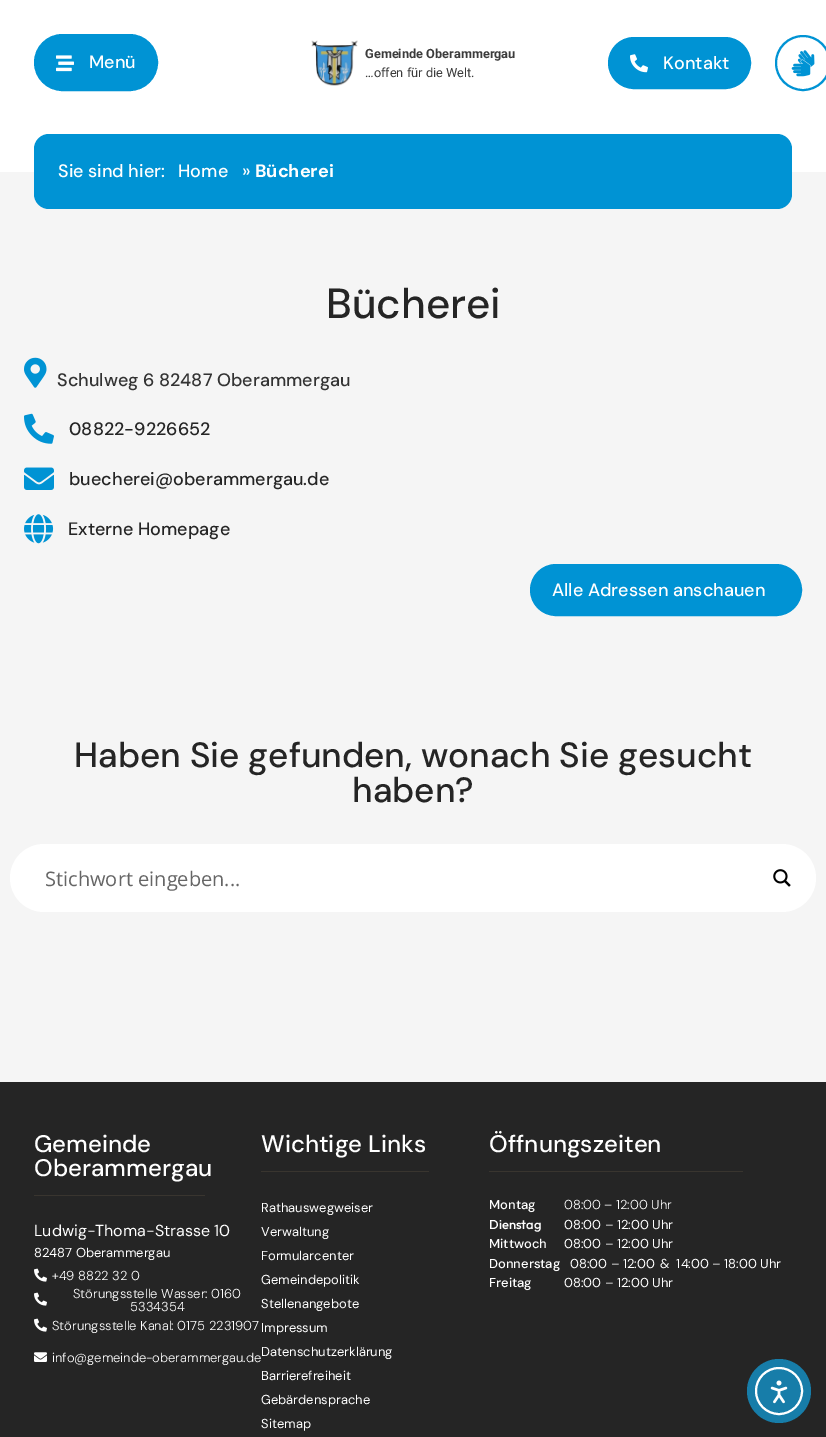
%!PS-Adobe-3.0
%%BoundingBox: 0 0 826 1437
%%LanguageLevel: 3
%%Pages: 1
%%EndComments
%%BeginProlog
/f { fill } bind def
/S { stroke } bind def
/q { gsave } bind def
/Q { grestore } bind def
/w { setlinewidth } bind def
/fn { [ exch dup neg 0 0 3 -1 roll 0 0 ] selectfont } def
/tx { moveto show } def
/bx { rectfill } def
/ci { newpath 0 360 arc closepath } def
/rr { 5 dict begin { /r /h /w /y /x } { exch def } forall
  x r add y moveto x w add y 2 copy h add r arct x w add y h add x 1 index r arct
  x y h add x y r arct x y 2 copy exch w add exch r arct closepath end } def
/im { 5 dict begin { /h /w /y /x /name } { exch def } forall
  gsave x y translate w h scale
  w h 8 [w 0 0 h 0 0] name (r) file false 3 colorimage grestore end } def
%%EndProlog
%%BeginSetup
<< /PageSize [826 1437] >> setpagedevice
%%EndSetup
%%Page: 1 1
0 1437 translate 1 -1 scale
4 setmiterlimit
1 setgray
0 0 826 1437 bx
0 0.576 0.831 setrgbcolor
35 35 122 55 27.5 rr q f Q
2 w
S
(image0.raw) 56 55 18 17 im
/DMSans-Medium 18 fn
1 setgray
(Menü) 89 68 tx
(image1.raw) 311 40 47 46 im
/Roboto-Bold 12.75 fn
0.231 setgray
(Gemeinde Oberammergau) 365 58 tx
/Roboto-Regular 12.75 fn
(…offen für die Welt.) 365 77 tx
0 0.576 0.831 setrgbcolor
609 38 141 50 25 rr q f Q
S
(image2.raw) 630 54 18 19 im
/DMSans-Medium 18 fn
1 setgray
(Kontakt) 663 69 tx
0 0.576 0.831 setrgbcolor
803 63 27 ci S
(image3.raw) 791 50 24 27 im
0.961 setgray
0 172 826 910 bx
0 0.576 0.831 setrgbcolor
34 134 758 75 15 rr f
1 setgray
(Sie sind hier:) 58 177 tx
(Home) 178 177 tx
(») 242 177 tx
/DMSans-Bold 18 fn
(Bücherei) 255 177 tx
/DMSans-Medium 42 fn
0.145 setgray
(Bücherei) 326 318 tx
(image4.raw) 24 357 23 31 im
/DMSans-Medium 18 fn
0.2 setgray
(Schulweg 6 82487 Oberammergau) 57 386 tx
(image5.raw) 24 413 30 31 im
0.145 setgray
(08822-9226652) 69 435 tx
(image6.raw) 24 467 30 23 im
(buecherei@oberammergau.de) 69 485 tx
(image7.raw) 24 514 30 30 im
(Externe Homepage) 68 535 tx
0 0.576 0.831 setrgbcolor
531 565 270 50 25 rr q f Q
S
1 setgray
(Alle Adressen anschauen) 552 596 tx
/DMSans-Medium 35 fn
0.145 setgray
(Haben Sie gefunden, wonach Sie gesucht) 74 767 tx
(haben?) 352 802 tx
1 setgray
10 844 806 68 34 rr f
/OpenSans-Regular 20 fn
0.4 setgray
(Stichwort eingeben...) 45 886 tx
(image8.raw) 773 869 18 18 im
0.145 setgray
0 1082 826 355 bx
/DMSans-Medium 24 fn
1 setgray
(Gemeinde) 34 1152 tx
(Oberammergau) 34 1176 tx
0.224 0.208 0.184 setrgbcolor
34 1195 171 1 bx
/DMSans-Regular 16 fn
1 setgray
(Ludwig-Thoma-Strasse 10) 34 1236 tx
/DMSans-Regular 13 fn
(82487 Oberammergau) 34 1257 tx
(image9.raw) 34 1268 13 14 im
/DMSans-Light 13 fn
(+49 8822 32 0) 52 1280 tx
(image9.raw) 34 1292 13 14 im
(Störungsstelle Wasser: 0160) 73 1298 tx
(5334354) 130 1311 tx
(image9.raw) 34 1318 13 14 im
(Störungsstelle Kanal: 0175 2231907) 52 1330 tx
(image10.raw) 34 1352 13 10 im
(info@gemeinde-oberammergau.de) 52 1362 tx
/DMSans-Medium 24 fn
(Wichtige Links) 261 1152 tx
0.224 0.208 0.184 setrgbcolor
261 1171 168 1 bx
/DMSans-Regular 13 fn
1 setgray
(Rathauswegweiser) 261 1212 tx
(Verwaltung) 261 1236 tx
(Formularcenter) 261 1260 tx
(Gemeindepolitik) 261 1284 tx
(Stellenangebote) 261 1308 tx
(Impressum) 261 1332 tx
(Datenschutzerklärung) 261 1356 tx
(Barrierefreiheit) 261 1380 tx
(Gebärdensprache) 261 1404 tx
(Sitemap) 261 1428 tx
/DMSans-Medium 24 fn
(Öffnungszeiten) 489 1152 tx
0.224 0.208 0.184 setrgbcolor
489 1171 254 1 bx
/DMSans-Medium 13 fn
1 setgray
(Montag) 489 1209 tx
/DMSans-Light 13 fn
(08:00 – 12:00 Uhr) 564 1209 tx
/Outfit-Medium 13 fn
(Dienstag) 489 1229 tx
/DMSans-Regular 13 fn
(08:00 – 12:00 Uhr) 564 1229 tx
/DMSans-Medium 13 fn
(Mittwoch) 489 1248 tx
/DMSans-Regular 13 fn
(08:00 – 12:00 Uhr) 564 1248 tx
/DMSans-Medium 13 fn
(Donnerstag) 489 1268 tx
/DMSans-Regular 13 fn
(08:00 – 12:00) 570 1268 tx
(&  14:00 – 18:00 Uhr) 660 1268 tx
/DMSans-Medium 13 fn
(Freitag) 489 1287 tx
/DMSans-Regular 13 fn
(08:00 – 12:00 Uhr) 564 1287 tx
0.09 0.49 0.663 setrgbcolor
779 1391 32 ci f
1 setgray
779 1391 23 ci S
(image11.raw) 770 1380 18 24 im
showpage
%%EOF
